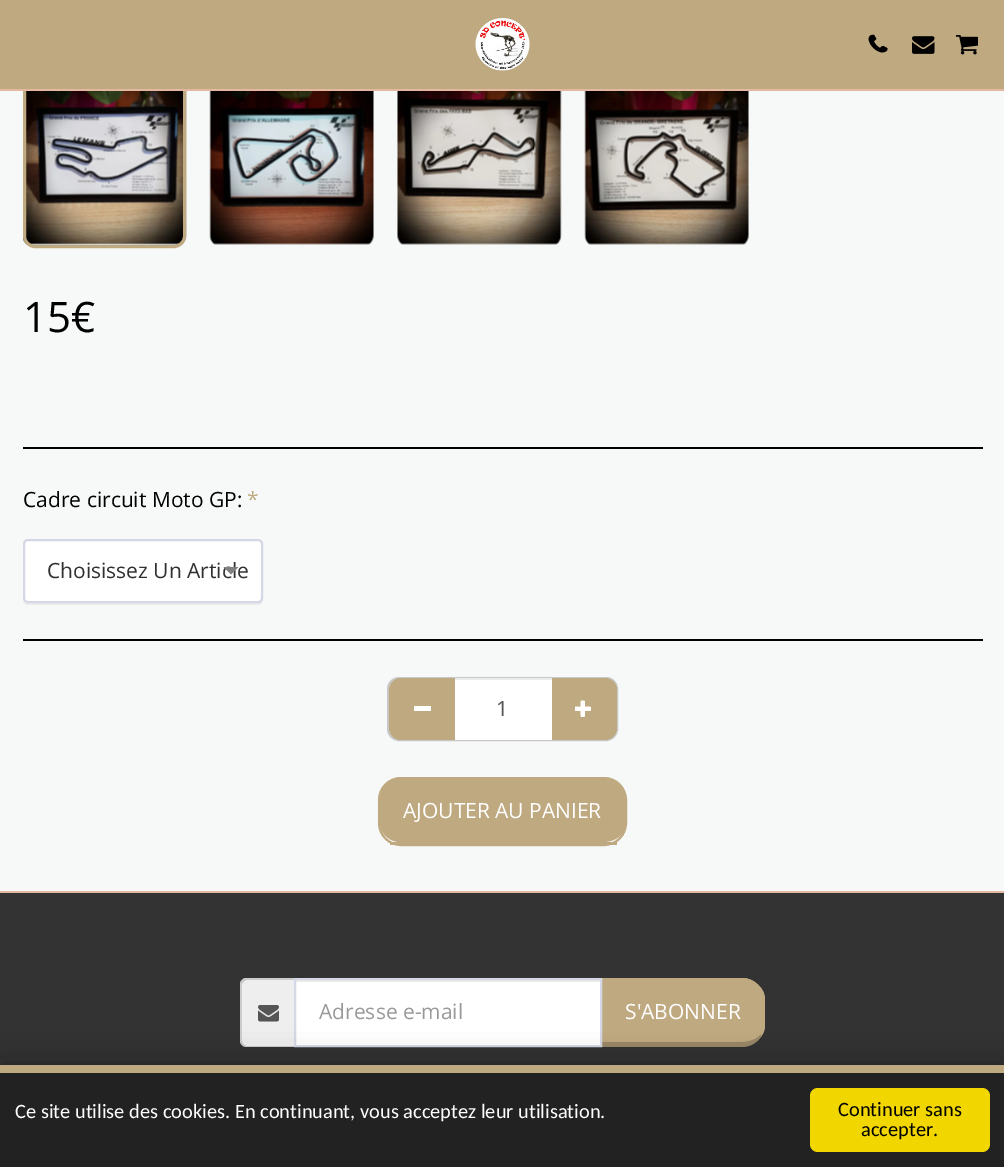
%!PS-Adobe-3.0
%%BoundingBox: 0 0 1004 1167
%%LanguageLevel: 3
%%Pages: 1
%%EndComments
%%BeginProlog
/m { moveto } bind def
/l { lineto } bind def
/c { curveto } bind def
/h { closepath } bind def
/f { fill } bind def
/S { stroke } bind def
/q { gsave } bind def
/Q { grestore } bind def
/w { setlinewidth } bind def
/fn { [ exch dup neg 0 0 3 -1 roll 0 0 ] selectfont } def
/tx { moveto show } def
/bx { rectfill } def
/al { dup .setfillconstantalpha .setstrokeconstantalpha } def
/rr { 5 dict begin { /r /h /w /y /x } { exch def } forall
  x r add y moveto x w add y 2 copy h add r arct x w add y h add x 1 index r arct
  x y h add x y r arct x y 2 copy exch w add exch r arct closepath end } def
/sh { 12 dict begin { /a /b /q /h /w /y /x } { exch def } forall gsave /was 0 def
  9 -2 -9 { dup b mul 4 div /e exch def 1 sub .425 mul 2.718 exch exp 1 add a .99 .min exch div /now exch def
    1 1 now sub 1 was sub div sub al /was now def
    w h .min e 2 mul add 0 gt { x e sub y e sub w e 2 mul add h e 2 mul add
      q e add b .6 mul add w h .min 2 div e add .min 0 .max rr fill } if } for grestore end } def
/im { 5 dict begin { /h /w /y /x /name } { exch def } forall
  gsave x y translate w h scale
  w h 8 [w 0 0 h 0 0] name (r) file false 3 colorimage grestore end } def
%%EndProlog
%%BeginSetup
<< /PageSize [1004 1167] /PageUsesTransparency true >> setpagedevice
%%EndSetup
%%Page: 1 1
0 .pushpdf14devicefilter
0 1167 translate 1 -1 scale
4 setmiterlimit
0.894 0.718 0.627 setrgbcolor
0 0 1004 1167 bx
0.969 0.976 0.973 setrgbcolor
0 91 1004 800 bx
(image5.raw) 23 91 164 154 im
0.749 0.663 0.502 setrgbcolor
3 w
24.5 79.5 160 167 10.5 rr S
0 0 1004 89 bx
0.894 0.718 0.627 setrgbcolor
23 89 163 2 bx
(image0.raw) 475 18 55 53 im
(image1.raw) 872 34 16 19 im
(image2.raw) 868 34 18 19 im
(image3.raw) 912 36 23 18 im
(image4.raw) 956 35 22 20 im
(image6.raw) 209 91 165 154 im
(image7.raw) 397 91 165 154 im
(image8.raw) 584 91 165 154 im
/OpenSans-Regular 42 fn
0 setgray
(15€) 23 332 tx
23 447 960 2 bx
/OpenSans-Regular 21 fn
(Cadre circuit Moto GP:) 23 507 tx
0.749 0.663 0.502 setrgbcolor
(*) 247 507 tx
0.05 al
0 setgray
23 601 m 23 603 25 605 28 605 c 258 605 l 261 605 263 603 263 600 c 263 545 l 262 543 l 262 598 l 262 601 260 603 258 603 c 27 603 l 25 603 24 602 23 601 c h f
1 al
1 setgray
24 540 238 62 4 rr q f Q
0.831 0.843 0.898 setrgbcolor
2 w
S
0.188 setgray
(Choisissez Un Article) 47 578 tx
0.502 setgray
223.5 567 m 238.5 567 l 231 574.5 l h f
0 setgray
23 639 960 2 bx
0.776 0.78 0.776 setrgbcolor
388 678 229 62 11 rr S
0.749 0.663 0.502 setrgbcolor
401 678 m 456 678 l 456 740 l 401 740 l 394.5 740 389 734.5 389 728 c 389 690 l 389 683.5 394.5 678 401 678 c h f
1 setgray
414 706 17 5 bx
0.749 0.663 0.502 setrgbcolor
551 678 m 605 678 l 611.5 678 617 683.5 617 690 c 617 728 l 617 734.5 611.5 740 605 740 c 551 740 l h f
1 setgray
455 680 97 60 bx
0.925 setgray
455 678 97 2 bx
0.333 setgray
(1) 496 716 tx
(image9.raw) 575 700 16 17 im
0.749 0.663 0.502 setrgbcolor
400 778 m 604 778 l 616 778 626 788 626 800 c 626 824 l 626 833 616 842 604 842 c 400 842 l 389 842 380 833 380 824 c 380 800 l 380 788 389 778 400 778 c h f
379 778 247 67 22 rr S
390 842 227 3 bx
1 setgray
(AJOUTER AU PANIER) 403 818 tx
0.2 setgray
0 893 1004 172 bx
0.933 setgray
247 980 m 294 980 l 294 1046 l 247 1046 l 244 1046 242 1044 242 1041 c 242 985 l 242 982 244 980 247 980 c h f
0.8 setgray
246 978 m 294 978 l 294 1047 l 246 1047 l 243 1047 240 1044 240 1041 c 240 984 l 240 981 243 978 246 978 c h 246 980 m 294 980 l 294 1046 l 246 1046 l 244 1046 242 1043 242 1041 c 242 984 l 242 982 244 980 246 980 c h eofill
(image10.raw) 258 1005 21 17 im
1 setgray
296 982 304 63 bx
0.925 setgray
296 980 304 2 bx
0.749 0.663 0.502 setrgbcolor
600 978 m 742 978 l 754.5 978 765 988.5 765 1001 c 765 1024 l 765 1036.5 754.5 1047 742 1047 c 600 1047 l h f
600 978 m 602 980 l 742 980 l 748 980 753 982 757 986 c 758 985 l 754 981 749 978 742 978 c h f
765 1024 m 765 1000 l 765 994 763 989 758 985 c 757 986 l 765 993 764 1002 764 1012 c 764 1019 765 1027 761 1034 c 761 1036 l 764 1033 765 1029 765 1024 c h f
0.2 al
0 setgray
742 1047 m 750 1047 757 1043 761 1036 c 761 1034 l 757 1039 750 1042 742 1042 c 602 1042 l 602 1041 l 600 1047 l h f
1 al
0.831 0.843 0.898 setrgbcolor
295 979 306 67 rectstroke
0.6 setgray
(Adresse e-mail) 319 1019 tx
1 setgray
(S'ABONNER) 625 1019 tx
0 setgray
0 1065 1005 102 0 15 0.31 sh
0.749 0.663 0.502 setrgbcolor
0 1065 1004 8 bx
0 1167 m 0 1065 l 2 1066 l 2 1162 l h f
0.133 setgray
0 1073 1004 94 bx
/Carlito-Regular 20.4 fn
1 setgray
(Ce site utilise des cookies. En continuant, vous acceptez leur utilisation.) 15 1118 tx
0.945 0.839 0 setrgbcolor
810 1088 180 64 8 rr f
0 setgray
(Continuer sans) 838 1116 tx
(accepter.) 861 1136 tx
.poppdf14devicefilter showpage
%%EOF
